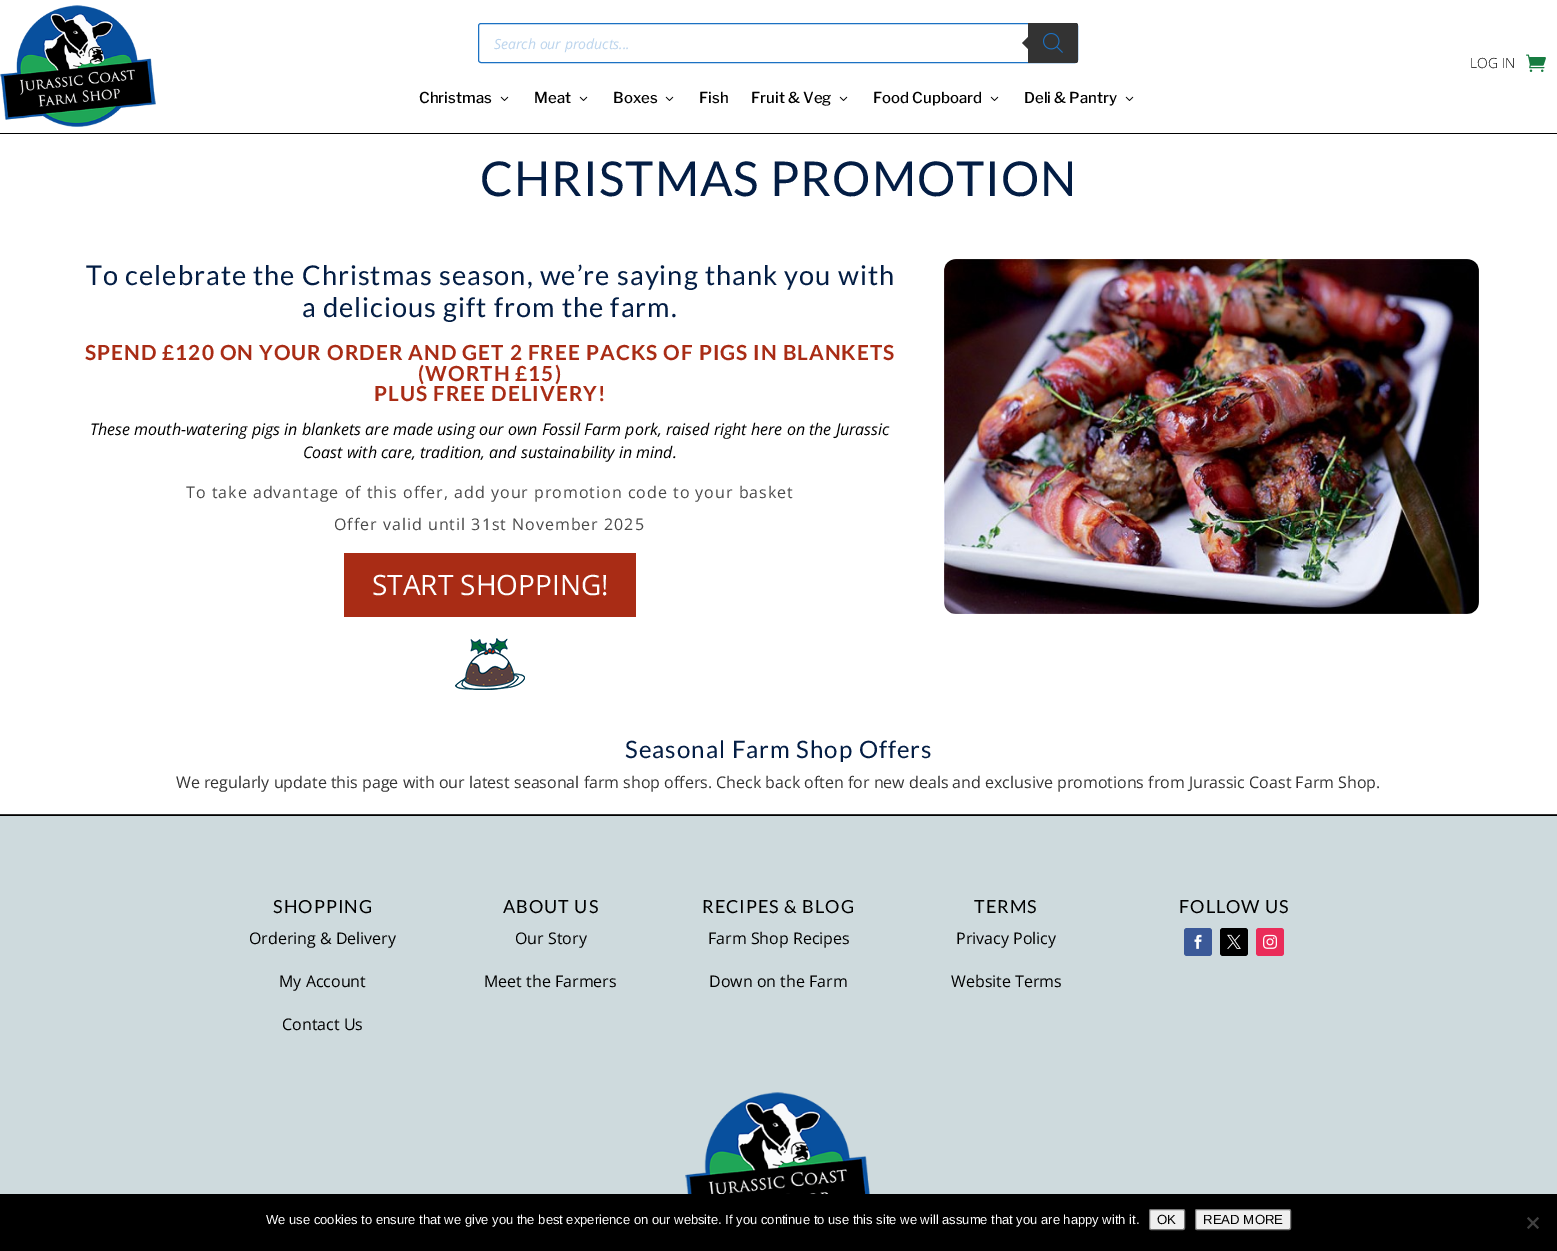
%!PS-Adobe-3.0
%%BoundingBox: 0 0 1557 1251
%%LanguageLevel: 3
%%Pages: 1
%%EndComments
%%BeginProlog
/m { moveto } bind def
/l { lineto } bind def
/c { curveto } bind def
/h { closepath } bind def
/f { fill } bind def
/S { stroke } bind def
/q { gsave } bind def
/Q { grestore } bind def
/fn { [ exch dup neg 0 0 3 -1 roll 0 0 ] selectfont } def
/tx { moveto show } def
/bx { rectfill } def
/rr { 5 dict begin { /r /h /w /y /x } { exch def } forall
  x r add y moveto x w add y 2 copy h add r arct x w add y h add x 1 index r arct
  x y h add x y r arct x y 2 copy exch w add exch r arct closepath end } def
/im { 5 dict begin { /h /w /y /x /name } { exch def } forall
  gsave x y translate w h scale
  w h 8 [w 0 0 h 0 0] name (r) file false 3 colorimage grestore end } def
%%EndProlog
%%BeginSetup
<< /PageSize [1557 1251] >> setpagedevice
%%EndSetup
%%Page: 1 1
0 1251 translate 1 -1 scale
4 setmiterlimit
1 setgray
0 0 1557 1251 bx
0 setgray
0 133 1557 1 bx
(image0.raw) 0 5 156 122 im
0.106 0.443 0.765 setrgbcolor
478.5 23.5 599 39 2.5 rr S
/OpenSans-Italic 14 fn
0.733 0.831 0.929 setrgbcolor
(Search our products...) 494 49 tx
0.2 setgray
1028 23 m 1076 23 l 1077 23 1078 24 1078 25 c 1078 61 l 1078 62 1077 63 1076 63 c 1028 63 l h f
1030 35 m 1030 51 l 1022 43 l h f
(image1.raw) 1043 33 20 20 im
/LibreFranklin-Medium 15 fn
0 setgray
(Christmas) 419 103 tx
(image2.raw) 500 96 9 5 im
(Meat) 534 103 tx
(image2.raw) 579 96 9 5 im
(Boxes) 613 103 tx
(image2.raw) 665 96 9 5 im
(Fish) 699 103 tx
(Fruit & Veg) 751 103 tx
(image2.raw) 839 96 9 5 im
(Food Cupboard) 873 103 tx
(image2.raw) 990 96 9 5 im
(Deli & Pantry) 1024 103 tx
(image2.raw) 1125 96 9 5 im
/OpenSans-Light 14 fn
(LOG IN) 1470 68 tx
(image3.raw) 1526 54 20 18 im
/Lato-Regular 48 fn
0.012 0.114 0.267 setrgbcolor
480 196 m 1 0 (CHRISTMAS PROMOTION) ashow
/Lato-Regular 27.2 fn
86 285 m 1 0 (To celebrate the Christmas season, we’re saying thank you with) ashow
302 317 m 1 0 (a delicious gift from the farm.) ashow
/Lato-Bold 20.8 fn
0.663 0.173 0.082 setrgbcolor
85 360 m 1 0 (SPEND £120 ON YOUR ORDER AND GET 2 FREE PACKS OF PIGS IN BLANKETS) ashow
418 381 m 1 0 (\(WORTH £15\)) ashow
374 401 m 1 0 (PLUS FREE DELIVERY!) ashow
/OpenSans-Italic 16 fn
0 setgray
(These mouth-watering pigs in blankets are made using our own Fossil Farm pork, raised right here on the Jurassic) 90 435 tx
(Coast with care, tradition, and sustainability in mind.) 303 458 tx
/OpenSans-Regular 16 fn
0.286 setgray
186 498 m 1 0 (To take advantage of this offer, add your promotion code to your basket) ashow
334 530 m 1 0 (Offer valid until 31st November 2025) ashow
0.663 0.173 0.082 setrgbcolor
344 553 292 64 bx
/OpenSans-Regular 28 fn
1 setgray
(START SHOPPING!) 372 595 tx
(image4.raw) 455 638 70 52 im
(image5.raw) 944 259 535 355 im
0.2 setgray
0 814 1557 1 bx
/Lato-Regular 24 fn
0.012 0.114 0.267 setrgbcolor
625 758 m 1 0 (Seasonal Farm Shop Offers) ashow
/OpenSans-Regular 16 fn
0.2 setgray
(We regularly update this page with our latest seasonal farm shop offers. Check back often for new deals and exclusive promotions from Jurassic Coast Farm Shop.) 176 788 tx
0.808 0.855 0.867 setrgbcolor
0 816 1557 378 bx
0 setgray
0 815 1557 1 bx
/Lato-Regular 18 fn
273 913 m 1 0 (SHOPPING) ashow
/OpenSans-Regular 16 fn
(Ordering & Delivery) 249 944 tx
(My Account) 279 987 tx
(Contact Us) 282 1030 tx
/Lato-Regular 18 fn
503 913 m 1 0 (ABOUT US) ashow
/OpenSans-Regular 16 fn
(Our Story) 515 944 tx
(Meet the Farmers) 484 987 tx
/Lato-Regular 18 fn
702 913 m 1 0 (RECIPES & BLOG) ashow
/OpenSans-Regular 16 fn
(Farm Shop Recipes) 708 944 tx
(Down on the Farm) 709 987 tx
/Lato-Regular 18 fn
974 913 m 1 0 (TERMS) ashow
/OpenSans-Regular 16 fn
(Privacy Policy) 956 944 tx
(Website Terms) 951 987 tx
/Lato-Regular 18 fn
1179 913 m 1 0 (FOLLOW US) ashow
0.231 0.349 0.596 setrgbcolor
1184 928 28 28 3 rr f
(image6.raw) 1194 934 8 15 im
0 setgray
1220 928 28 28 3 rr f
(image7.raw) 1227 934 14 15 im
0.918 0.173 0.349 setrgbcolor
1256 928 28 28 3 rr f
(image8.raw) 1263 934 14 15 im
(image9.raw) 685 1092 185 102 im
0 setgray
0 1194 1557 57 bx
/LiberationSans-Regular 13 fn
1 setgray
(We use cookies to ensure that we give you the best experience on our website. If you continue to use this site we will assume that you are happy with it.) 266 1224 tx
0.937 setgray
1149.5 1209.5 35 20 1.5 rr q f Q
0.463 setgray
S
/LiberationSans-Regular 13.25 fn
0 setgray
(OK) 1157 1224 tx
0.937 setgray
1195.5 1209.5 95 20 1.5 rr q f Q
0.463 setgray
S
0 setgray
(READ MORE) 1203 1224 tx
0.251 setgray
1537.5 1217 m 1539 1218.5 l 1528.5 1229 l 1527 1227.5 l h f
1527 1218.5 m 1528.5 1217 l 1539 1227.5 l 1537.5 1229 l h f
showpage
%%EOF
